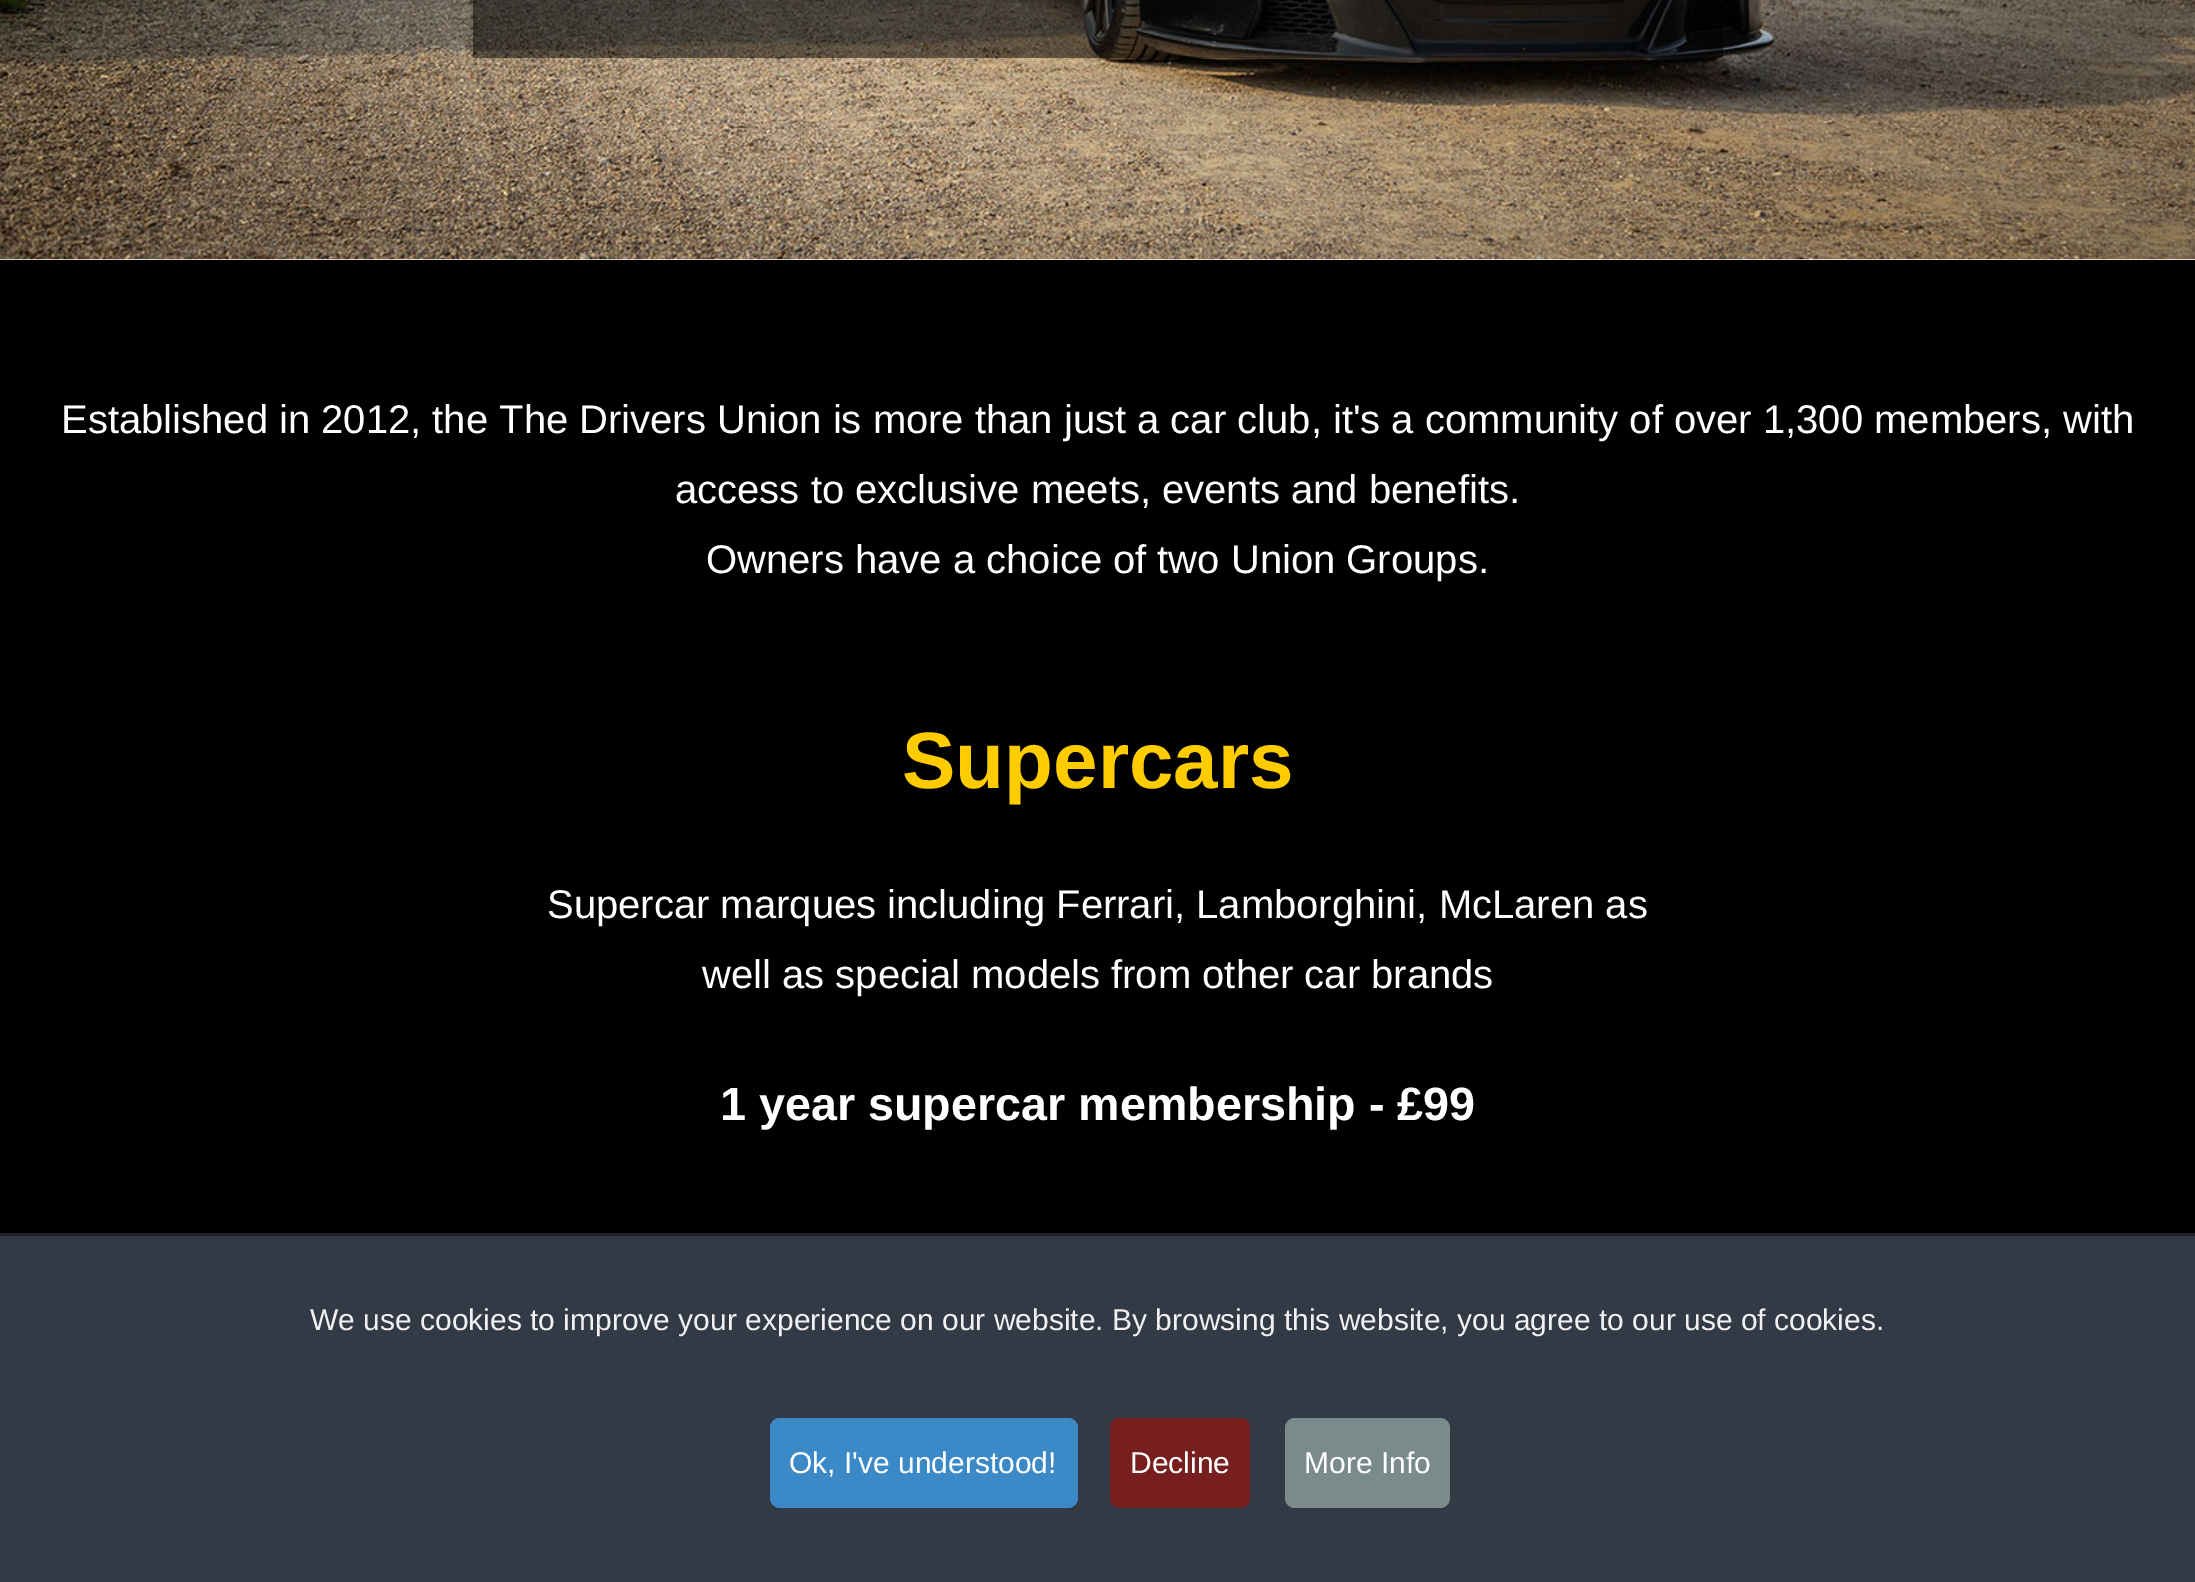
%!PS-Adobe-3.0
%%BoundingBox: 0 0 2195 1582
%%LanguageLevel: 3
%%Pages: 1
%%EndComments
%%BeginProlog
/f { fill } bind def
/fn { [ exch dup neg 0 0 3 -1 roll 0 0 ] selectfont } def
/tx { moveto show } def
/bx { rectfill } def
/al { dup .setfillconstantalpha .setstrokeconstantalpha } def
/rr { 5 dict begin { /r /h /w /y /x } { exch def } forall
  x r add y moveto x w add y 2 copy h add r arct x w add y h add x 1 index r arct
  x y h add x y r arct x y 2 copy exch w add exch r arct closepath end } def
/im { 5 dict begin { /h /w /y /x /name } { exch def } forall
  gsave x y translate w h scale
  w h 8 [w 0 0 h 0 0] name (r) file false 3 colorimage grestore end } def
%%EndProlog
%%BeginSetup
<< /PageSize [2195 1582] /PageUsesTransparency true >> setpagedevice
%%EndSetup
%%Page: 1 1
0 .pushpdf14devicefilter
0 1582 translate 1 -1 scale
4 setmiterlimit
1 setgray
0 0 2195 1582 bx
(image0.raw) 0 0 2195 260 im
0.49 al
0 setgray
473 0 1250 58 bx
1 al
0 260 2195 973 bx
/LiberationSans-Regular 40 fn
1 setgray
(Established in 2012, the The Drivers Union is more than just a car club, it's a community of over 1,300 members, with) 61 433 tx
(access to exclusive meets, events and benefits.) 675 503 tx
(Owners have a choice of two Union Groups.) 706 573 tx
/LiberationSans-Bold 80 fn
1 0.8 0 setrgbcolor
(Supercars) 902 788 tx
/LiberationSans-Regular 40 fn
1 setgray
(Supercar marques including Ferrari, Lamborghini, McLaren as) 547 918 tx
(well as special models from other car brands) 702 988 tx
/LiberationSans-Bold 46.7 fn
(1 year supercar membership - £99) 720 1120 tx
0.196 0.227 0.271 setrgbcolor
0 1236 2195 346 bx
0.125 0.133 0.149 setrgbcolor
0 1233 2195 3 bx
/LiberationSans-Regular 30 fn
0.945 0.945 0.953 setrgbcolor
(We use cookies to improve your experience on our website. By browsing this website, you agree to our use of cookies.) 310 1330 tx
0.231 0.537 0.78 setrgbcolor
770 1418 308 90 10 rr f
1 setgray
(Ok, I've understood!) 789 1473 tx
0.467 0.122 0.122 setrgbcolor
1110 1418 140 90 10 rr f
1 setgray
(Decline) 1130 1473 tx
0.482 0.541 0.545 setrgbcolor
1285 1418 165 90 10 rr f
1 setgray
(More Info) 1304 1473 tx
.poppdf14devicefilter showpage
%%EOF
